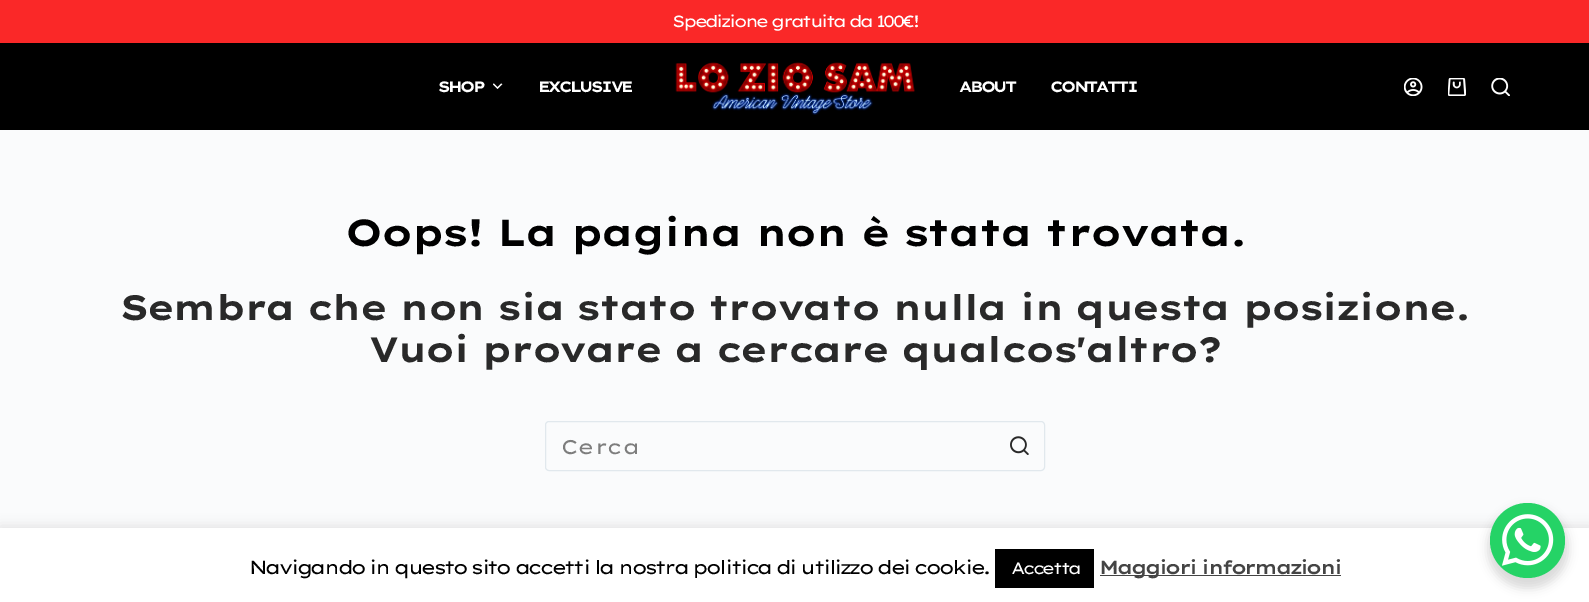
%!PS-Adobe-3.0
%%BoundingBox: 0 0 1589 602
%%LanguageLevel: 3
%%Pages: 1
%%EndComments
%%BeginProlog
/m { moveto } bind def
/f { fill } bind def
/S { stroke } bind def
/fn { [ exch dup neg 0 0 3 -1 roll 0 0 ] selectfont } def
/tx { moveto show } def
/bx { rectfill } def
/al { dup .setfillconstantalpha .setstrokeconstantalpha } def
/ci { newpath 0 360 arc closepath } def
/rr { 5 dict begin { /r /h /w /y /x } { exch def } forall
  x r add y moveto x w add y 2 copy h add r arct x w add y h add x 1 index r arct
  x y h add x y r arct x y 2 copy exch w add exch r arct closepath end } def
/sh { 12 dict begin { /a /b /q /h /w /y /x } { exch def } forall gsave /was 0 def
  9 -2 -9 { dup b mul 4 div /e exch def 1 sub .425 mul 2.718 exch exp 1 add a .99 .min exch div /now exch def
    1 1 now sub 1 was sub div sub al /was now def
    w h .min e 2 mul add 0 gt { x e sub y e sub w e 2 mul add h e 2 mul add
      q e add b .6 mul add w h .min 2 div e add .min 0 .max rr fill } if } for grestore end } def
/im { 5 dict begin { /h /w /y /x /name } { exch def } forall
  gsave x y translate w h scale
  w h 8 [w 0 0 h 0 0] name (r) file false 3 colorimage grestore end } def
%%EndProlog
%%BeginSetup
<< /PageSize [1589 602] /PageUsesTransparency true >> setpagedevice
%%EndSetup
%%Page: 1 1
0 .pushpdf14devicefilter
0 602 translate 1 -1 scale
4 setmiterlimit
0.98 0.984 0.988 setrgbcolor
0 0 1589 602 bx
0.98 0.157 0.157 setrgbcolor
0 0 1589 43 bx
/LexendMega-Regular 16.25 fn
1 setgray
672 27 m -2.5 0 (Spedizione gratuita da 100€!) ashow
0 setgray
0 43 1589 87 bx
/LexendMega-Bold 15 fn
1 setgray
438 92 m -2.5 0 (SHOP) ashow
(image0.raw) 493 83 10 6 im
538 92 m -2.5 0 (EXCLUSIVE) ashow
(image1.raw) 675 62 240 53 im
959 92 m -2.5 0 (ABOUT) ashow
1050 92 m -2.5 0 (CONTATTI) ashow
(image2.raw) 1404 78 19 18 im
(image3.raw) 1448 78 18 18 im
(image4.raw) 1491 78 19 18 im
/LexendMega-Bold 37.5 fn
0 setgray
345 246 m -2.5 0 (Oops! La pagina non è stata trovata.) ashow
/LexendMega-Bold 35 fn
0.161 setgray
120 320 m -2.5 0 (Sembra che non sia stato trovato nulla in questa posizione.) ashow
369 362 m -2.5 0 (Vuoi provare a cercare qualcos'altro?) ashow
0.882 0.91 0.929 setrgbcolor
545.5 421.5 499 49 3.5 rr S
/LexendMega-Regular 20 fn
0.49 setgray
(Cerca) 561 454 tx
(image5.raw) 1010 436 19 19 im
0.675 0.671 0.671 setrgbcolor
0 526 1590 75 0 6 0.3 sh
1 setgray
0 528 1589 74 bx
/LexendMega-Regular 18.75 fn
0 setgray
249 574 m -2.5 0 (Navigando in questo sito accetti la nostra politica di utilizzo dei cookie.) ashow
995 549 99 39 bx
/LexendMega-Regular 16.25 fn
1 setgray
1011 574 m -2.5 0 (Accetta) ashow
0.267 setgray
1100 575 241 1 bx
/LexendMega-SemiBold 18.75 fn
1099 574 m -2.5 0 (Maggiori informazioni) ashow
0 setgray
1488 508 80 80 40 5 0.15 sh
0.145 0.827 0.4 setrgbcolor
1527.5 540.5 37.5 ci f
(image6.raw) 1502 514 52 52 im
.poppdf14devicefilter showpage
%%EOF
